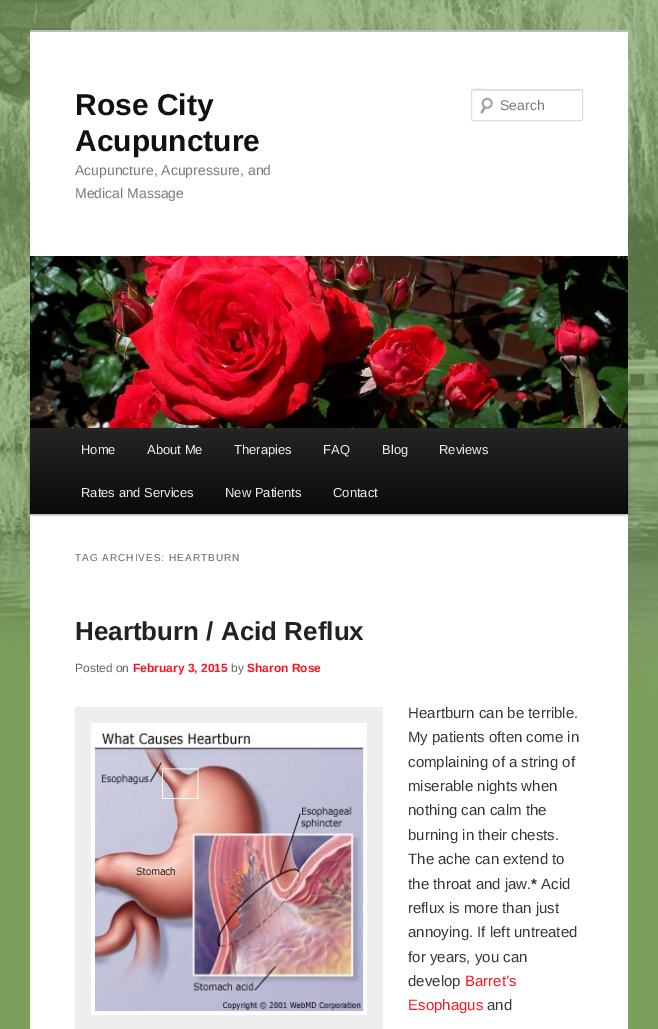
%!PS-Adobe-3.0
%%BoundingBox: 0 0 658 1029
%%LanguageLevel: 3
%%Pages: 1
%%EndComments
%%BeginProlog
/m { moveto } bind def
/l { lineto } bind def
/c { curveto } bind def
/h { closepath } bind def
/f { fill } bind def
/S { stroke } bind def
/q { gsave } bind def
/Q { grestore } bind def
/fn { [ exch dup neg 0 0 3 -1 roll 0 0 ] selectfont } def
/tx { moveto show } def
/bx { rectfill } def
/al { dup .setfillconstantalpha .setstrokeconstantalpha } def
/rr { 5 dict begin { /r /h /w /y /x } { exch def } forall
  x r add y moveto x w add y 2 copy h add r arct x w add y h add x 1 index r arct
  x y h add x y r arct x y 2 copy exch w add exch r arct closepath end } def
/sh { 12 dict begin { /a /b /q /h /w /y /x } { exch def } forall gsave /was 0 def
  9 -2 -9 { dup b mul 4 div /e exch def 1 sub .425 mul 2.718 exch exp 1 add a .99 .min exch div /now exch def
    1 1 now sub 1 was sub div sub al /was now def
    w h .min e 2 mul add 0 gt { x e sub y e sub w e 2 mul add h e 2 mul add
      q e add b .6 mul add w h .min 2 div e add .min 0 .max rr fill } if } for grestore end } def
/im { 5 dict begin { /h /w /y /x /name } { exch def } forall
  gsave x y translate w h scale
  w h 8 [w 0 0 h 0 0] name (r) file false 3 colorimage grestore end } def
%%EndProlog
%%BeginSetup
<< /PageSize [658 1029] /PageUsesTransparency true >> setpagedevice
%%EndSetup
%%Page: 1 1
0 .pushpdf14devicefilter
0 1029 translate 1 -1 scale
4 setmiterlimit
0.482 0.627 0.357 setrgbcolor
0 0 658 1029 bx
(image0.raw) 0 0 658 694 im
1 setgray
30 32 598 997 bx
0.733 setgray
30 30 598 2 bx
/LiberationSans-Bold 30 fn
0.067 setgray
(Rose City) 75 115 tx
(Acupuncture) 75 151 tx
/LiberationSans-Regular 14 fn
0.478 setgray
(Acupuncture, Acupressure, and) 75 175 tx
(Medical Massage) 75 198 tx
(image1.raw) 480 97 13 17 im
0.902 setgray
473 91 m 582 91 l 582 92 l 581 90 l 491 90 l 487 90 472 85 472 92 c 472 91 472 91 473 91 c h f
0.867 setgray
471.5 89.5 111 31 1.5 rr S
0.478 setgray
(Search) 500 110 tx
0 setgray
30 429 598 86 0 1 0.4 sh
(image2.raw) 30 256 598 172 im
q 30 428 m 628 428 l 628 514 l 30 514 l h clip newpath
<< /ShadingType 2 /ColorSpace /DeviceRGB /Coords [329 428 329 514] /Extend [true true] /Function << /FunctionType 2 /Domain [0 1] /C0 [0.145 0.145 0.145] /C1 [0.039 0.039 0.039] /N 1 >> >> shfill Q
/LiberationSans-Regular 13 fn
0.933 setgray
(Home) 81 454 tx
(About Me) 147 454 tx
(Therapies) 234 454 tx
(FAQ) 323 454 tx
(Blog) 382 454 tx
(Reviews) 439 454 tx
(Rates and Services) 81 497 tx
(New Patients) 225 497 tx
(Contact) 333 497 tx
/LiberationSans-Regular 10 fn
0.4 setgray
75 561 m 1 0 (TAG ARCHIVES: HEARTBURN) ashow
/LiberationSans-Bold 26 fn
0.133 setgray
(Heartburn / Acid Reflux) 75 640 tx
/LiberationSans-Regular 12 fn
0.4 setgray
(Posted on) 75 672 tx
/LiberationSans-Bold 12 fn
0.973 0.086 0.125 setrgbcolor
(February 3, 2015) 133 672 tx
/LiberationSans-Regular 12 fn
0.4 setgray
(by) 231 672 tx
/LiberationSans-Bold 12 fn
0.973 0.086 0.125 setrgbcolor
(Sharon Rose) 247 672 tx
0.933 setgray
75 707 308 322 bx
(image3.raw) 91 723 276 292 im
/LiberationSans-Regular 15 fn
0.216 setgray
(Heartburn can be terrible.) 408 718 tx
(My patients often come in) 408 742 tx
(complaining of a string of) 408 767 tx
(miserable nights when) 408 791 tx
(nothing can calm the) 408 815 tx
(burning in their chests.) 408 840 tx
(The ache can extend to) 408 864 tx
(the throat and jaw.) 408 889 tx
/LiberationSans-Bold 15 fn
(*) 531 889 tx
/LiberationSans-Regular 15 fn
(Acid) 541 889 tx
(reflux is more than just) 408 913 tx
(annoying. If left untreated) 408 937 tx
(for years, you can) 408 962 tx
(develop) 408 986 tx
0.973 0.086 0.125 setrgbcolor
(Barret’s) 465 986 tx
(Esophagus) 408 1010 tx
0.216 setgray
(and) 487 1010 tx
.poppdf14devicefilter showpage
%%EOF
